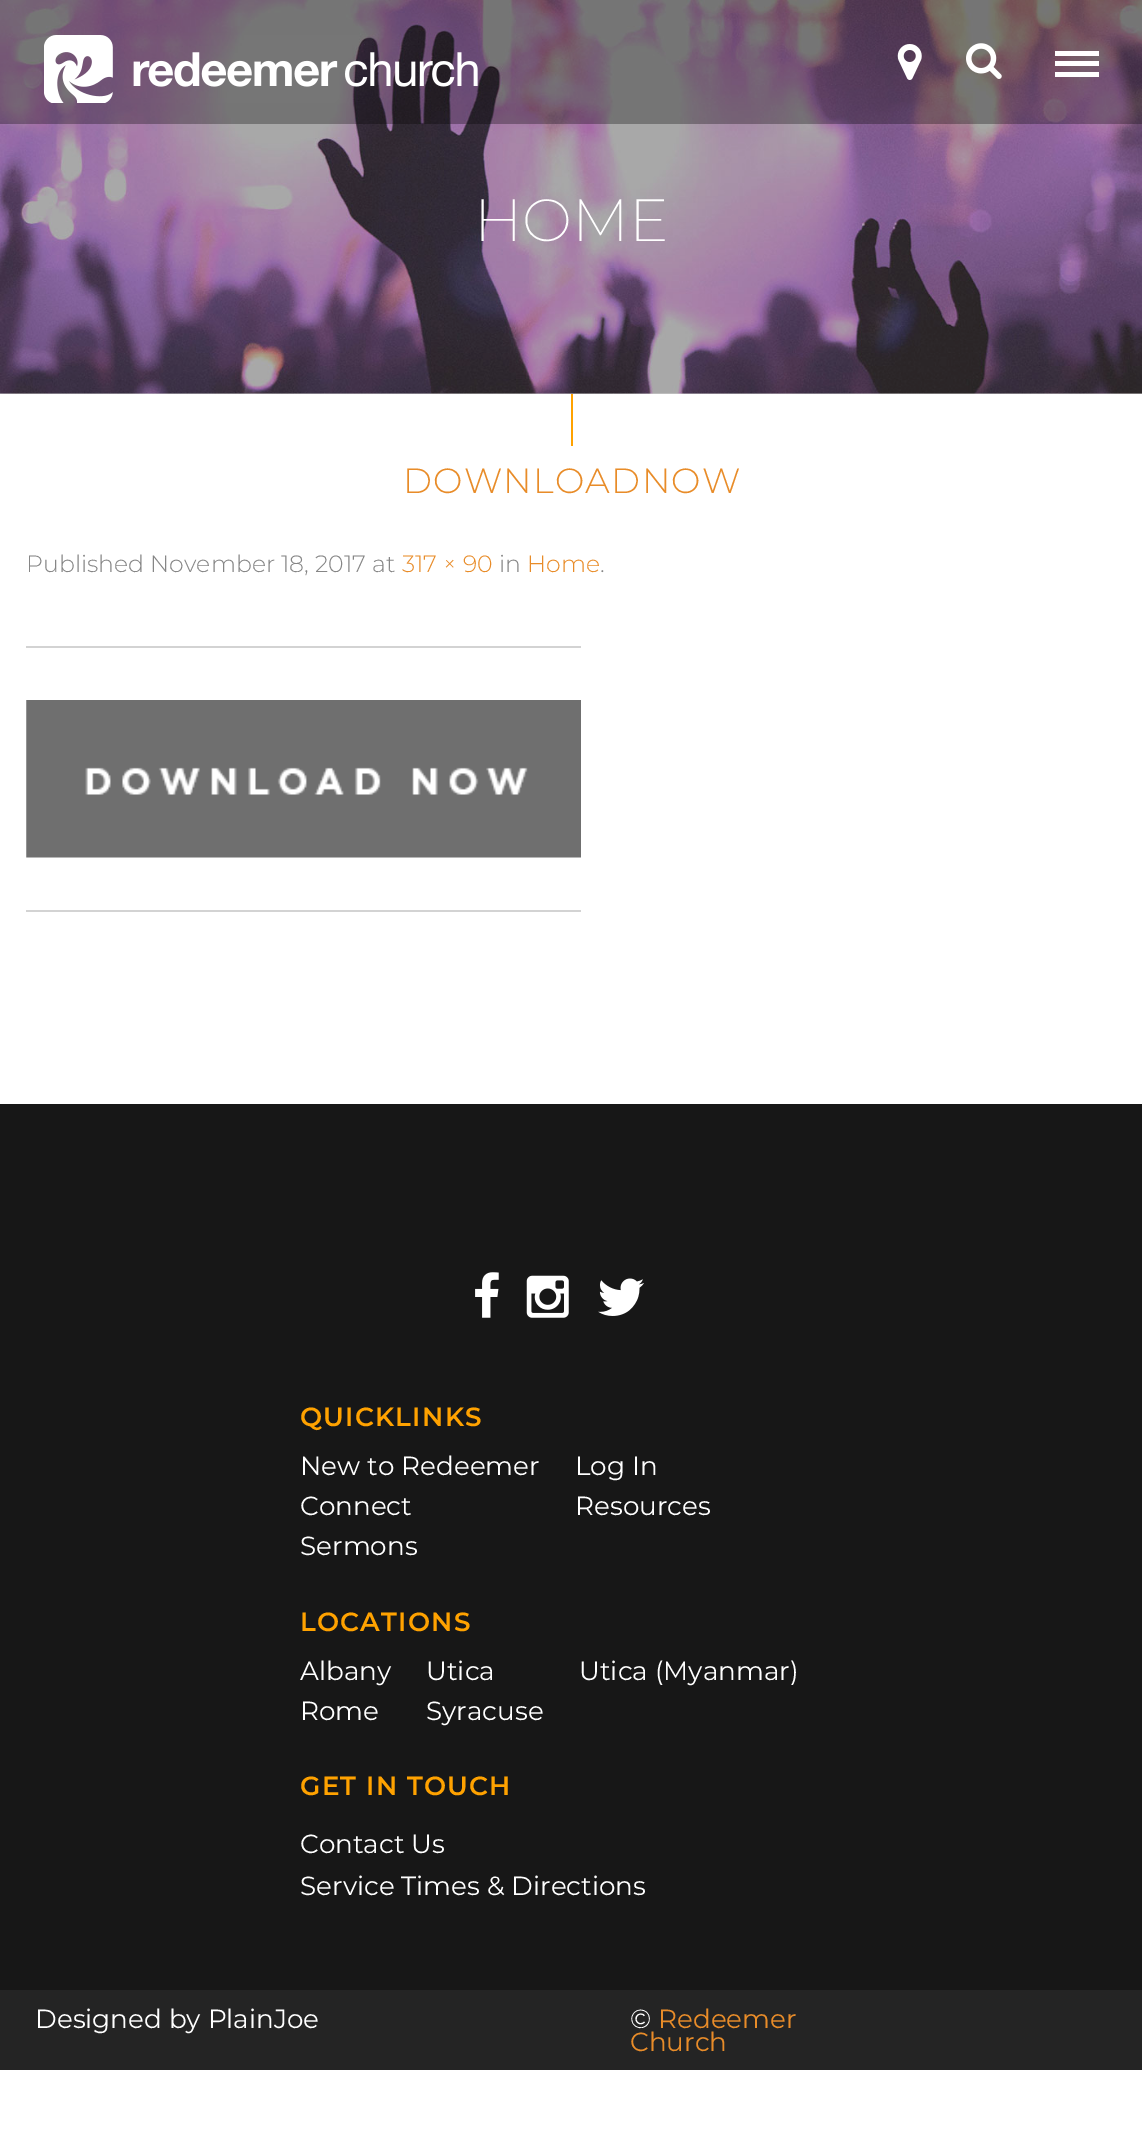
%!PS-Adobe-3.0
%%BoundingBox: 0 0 1142 2151
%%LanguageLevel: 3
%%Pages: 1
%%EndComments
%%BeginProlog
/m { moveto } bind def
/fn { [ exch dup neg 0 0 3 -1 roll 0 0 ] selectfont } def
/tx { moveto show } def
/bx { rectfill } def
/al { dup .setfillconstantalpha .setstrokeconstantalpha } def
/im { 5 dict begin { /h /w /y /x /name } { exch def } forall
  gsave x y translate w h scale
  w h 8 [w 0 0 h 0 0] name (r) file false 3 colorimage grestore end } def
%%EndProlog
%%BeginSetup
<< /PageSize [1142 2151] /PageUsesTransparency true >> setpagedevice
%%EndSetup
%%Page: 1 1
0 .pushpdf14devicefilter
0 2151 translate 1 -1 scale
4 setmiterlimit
1 setgray
0 0 1142 2151 bx
0.851 setgray
0 393 1142 1 bx
(image3.raw) 0 0 1142 394 im
0.3 al
0 setgray
0 0 1142 124 bx
1 al
(image0.raw) 44 35 434 68 im
(image1.raw) 897 44 25 36 im
(image2.raw) 966 43 36 36 im
1 setgray
1055 61 44 5 bx
1055 51 44 5 bx
1055 72 44 5 bx
/Montserrat-ExtraLight 59.5 fn
(HOME) 474 241 tx
1 0.635 0 setrgbcolor
571 394 2 52 bx
/Montserrat-Light 35 fn
0.91 0.549 0.161 setrgbcolor
403 493 m 1.25 0 (DOWNLOADNOW) ashow
/Montserrat-Light 23.6 fn
0.525 setgray
(Published November 18, 2017 at) 26 572 tx
0.91 0.549 0.161 setrgbcolor
(317 × 90) 402 572 tx
0.525 setgray
(in) 499 572 tx
0.91 0.549 0.161 setrgbcolor
(Home) 527 572 tx
0.525 setgray
(.) 600 572 tx
0.827 setgray
26 646 555 2 bx
(image4.raw) 26 700 555 158 im
26 910 555 2 bx
0.09 setgray
0 1104 1142 886 bx
(image5.raw) 475 1272 24 46 im
(image6.raw) 526 1275 43 43 im
(image7.raw) 598 1278 46 38 im
/Montserrat-SemiBold 26.25 fn
1 0.635 0 setrgbcolor
300 1426 m 1.25 0 (QUICKLINKS) ashow
/Montserrat-Regular 26.25 fn
1 setgray
(New to Redeemer) 300 1475 tx
(Connect) 300 1515 tx
(Log In) 575 1475 tx
(Resources) 575 1515 tx
(Sermons) 300 1555 tx
/Montserrat-SemiBold 26.25 fn
1 0.635 0 setrgbcolor
300 1631 m 1.25 0 (LOCATIONS) ashow
/Montserrat-Regular 26.25 fn
1 setgray
(Albany) 300 1680 tx
(Rome) 300 1720 tx
(Utica) 426 1680 tx
(Syracuse) 426 1720 tx
(Utica \(Myanmar\)) 579 1680 tx
/Montserrat-SemiBold 26.25 fn
1 0.635 0 setrgbcolor
300 1795 m 1.25 0 (GET IN TOUCH) ashow
/Montserrat-Regular 26.25 fn
1 setgray
(Contact Us) 300 1853 tx
(Service Times & Directions) 300 1895 tx
0.141 setgray
0 1990 1142 80 bx
1 setgray
(Designed by PlainJoe) 35 2028 tx
(©) 630 2028 tx
0.91 0.549 0.161 setrgbcolor
(Redeemer) 658 2028 tx
(Church) 630 2051 tx
.poppdf14devicefilter showpage
%%EOF
